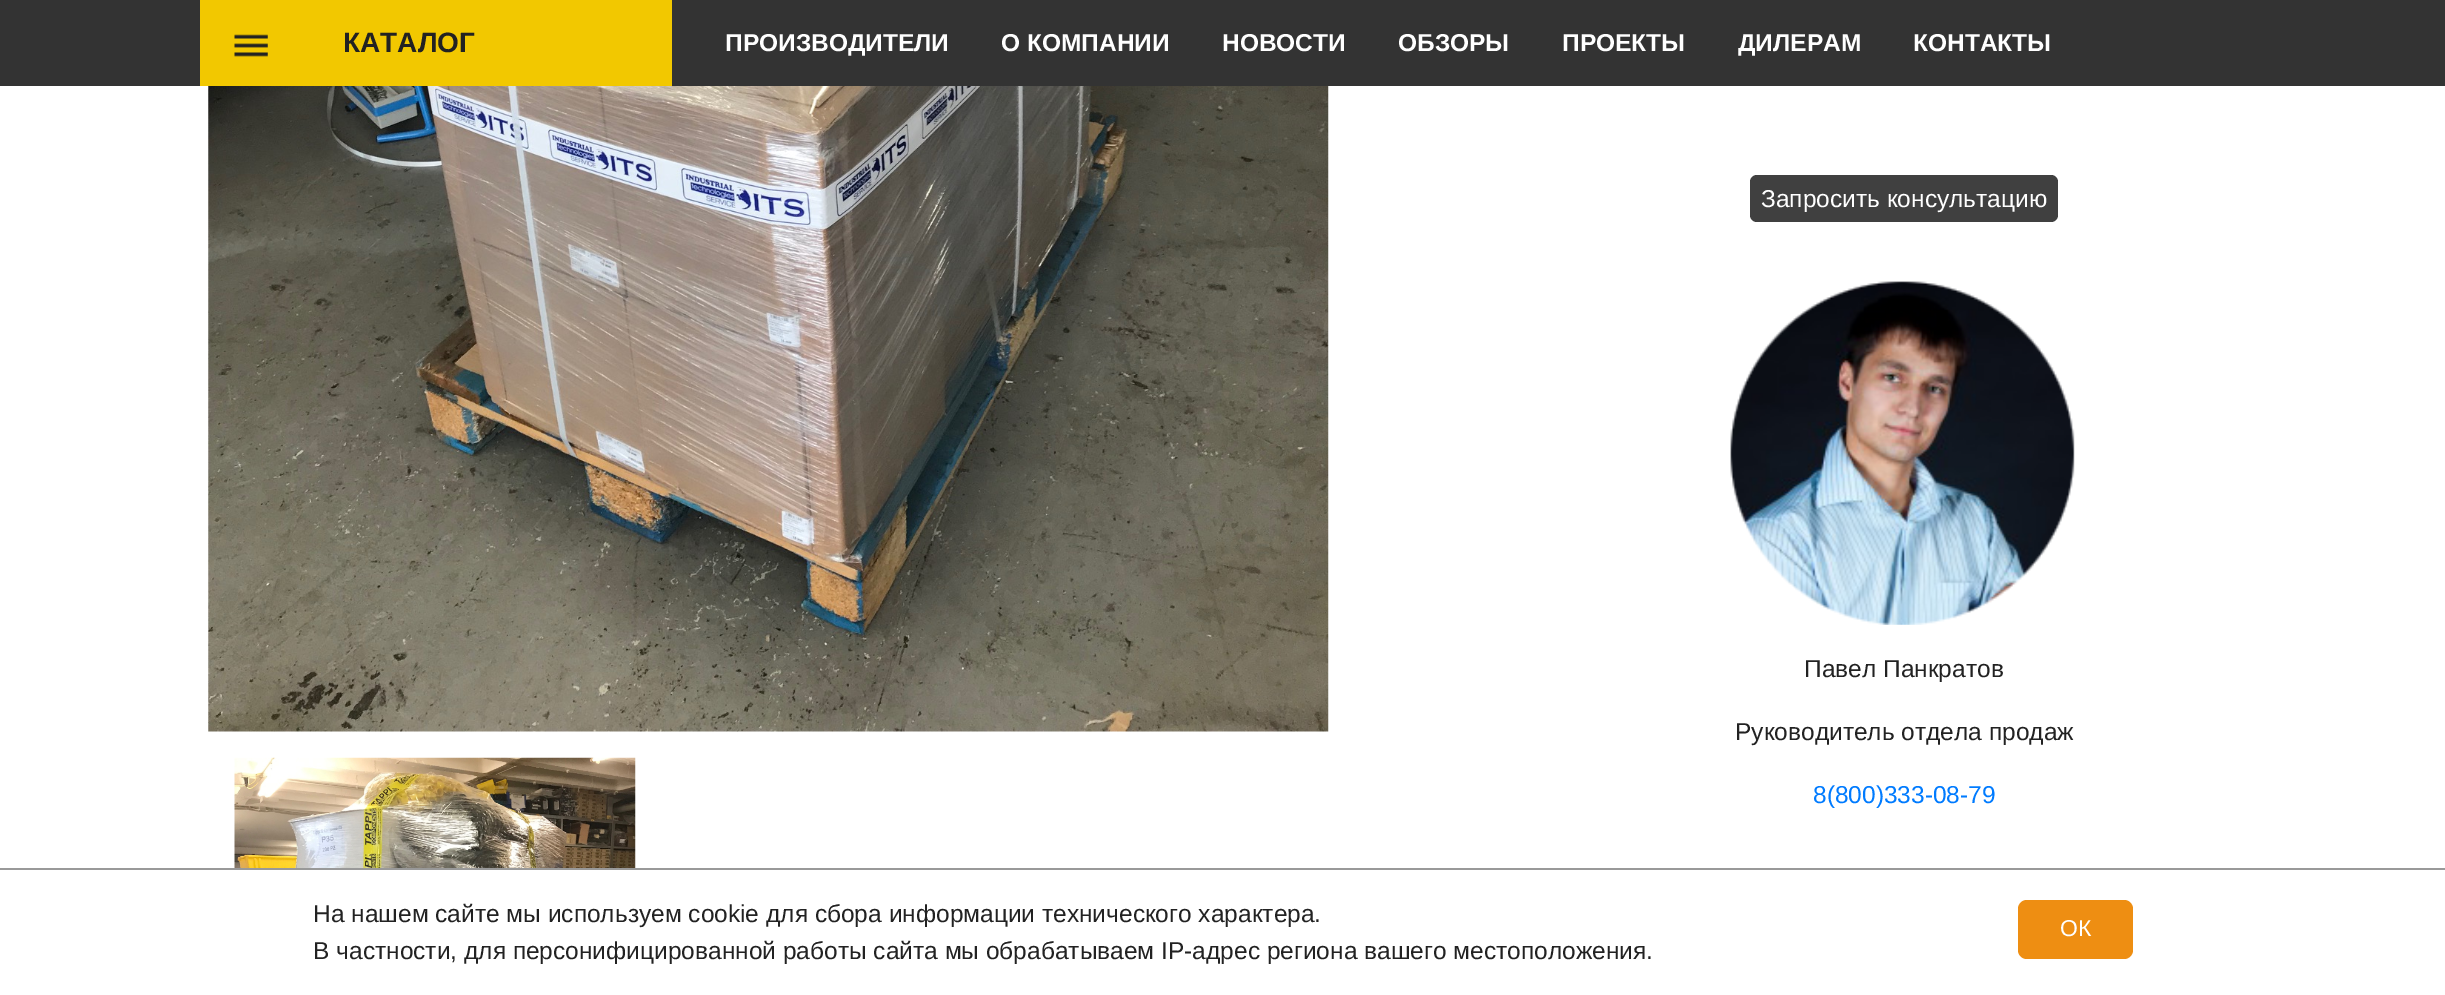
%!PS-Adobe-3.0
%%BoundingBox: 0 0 2445 995
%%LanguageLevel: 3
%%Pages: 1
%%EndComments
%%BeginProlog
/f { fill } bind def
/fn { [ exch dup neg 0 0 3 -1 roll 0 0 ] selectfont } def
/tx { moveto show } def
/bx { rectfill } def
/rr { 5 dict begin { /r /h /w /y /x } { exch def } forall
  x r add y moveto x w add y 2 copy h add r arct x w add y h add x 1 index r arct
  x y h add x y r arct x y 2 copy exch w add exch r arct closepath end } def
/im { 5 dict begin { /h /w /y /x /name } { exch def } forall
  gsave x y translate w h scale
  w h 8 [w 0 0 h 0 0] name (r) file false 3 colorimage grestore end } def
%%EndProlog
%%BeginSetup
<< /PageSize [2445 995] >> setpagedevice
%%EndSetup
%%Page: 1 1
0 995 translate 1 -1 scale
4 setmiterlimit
1 setgray
0 0 2445 995 bx
0.2 setgray
0 0 2445 86 bx
0.949 0.784 0 setrgbcolor
200 0 472 86 bx
(image0.raw) 234 34 34 23 im
/LiberationSans-Bold 28 fn
0.133 setgray
(КАТАЛОГ) 343 52 tx
/LiberationSans-Bold 24.5 fn
1 setgray
(ПРОИЗВОДИТЕЛИ) 725 51 tx
(О КОМПАНИИ) 1001 51 tx
(НОВОСТИ) 1222 51 tx
(ОБЗОРЫ) 1398 51 tx
(ПРОЕКТЫ) 1562 51 tx
(ДИЛЕРАМ) 1738 51 tx
(КОНТАКТЫ) 1913 51 tx
(image1.raw) 208 86 1121 646 im
(image2.raw) 234 757 402 111 im
0.251 setgray
1750 175 308 47 7 rr f
/LiberationSans-Regular 24.5 fn
1 setgray
(Запросить консультацию) 1761 207 tx
(image3.raw) 1730 281 345 344 im
0.133 setgray
(Павел Панкратов) 1804 677 tx
(Руководитель отдела продаж) 1735 740 tx
0 0.482 1 setrgbcolor
(8\(800\)333-08-79) 1813 803 tx
0.6 setgray
0 868 2445 2 bx
0.133 setgray
(На нашем сайте мы используем cookie для сбора информации технического характера.) 313 922 tx
0.933 0.557 0.071 setrgbcolor
2018 900 115 59 9 rr f
/LiberationSans-Regular 23 fn
1 setgray
(ОК) 2060 936 tx
/LiberationSans-Regular 24.5 fn
0.133 setgray
(В частности, для персонифицированной работы сайта мы обрабатываем IP-адрес региона вашего местоположения.) 313 959 tx
showpage
%%EOF
